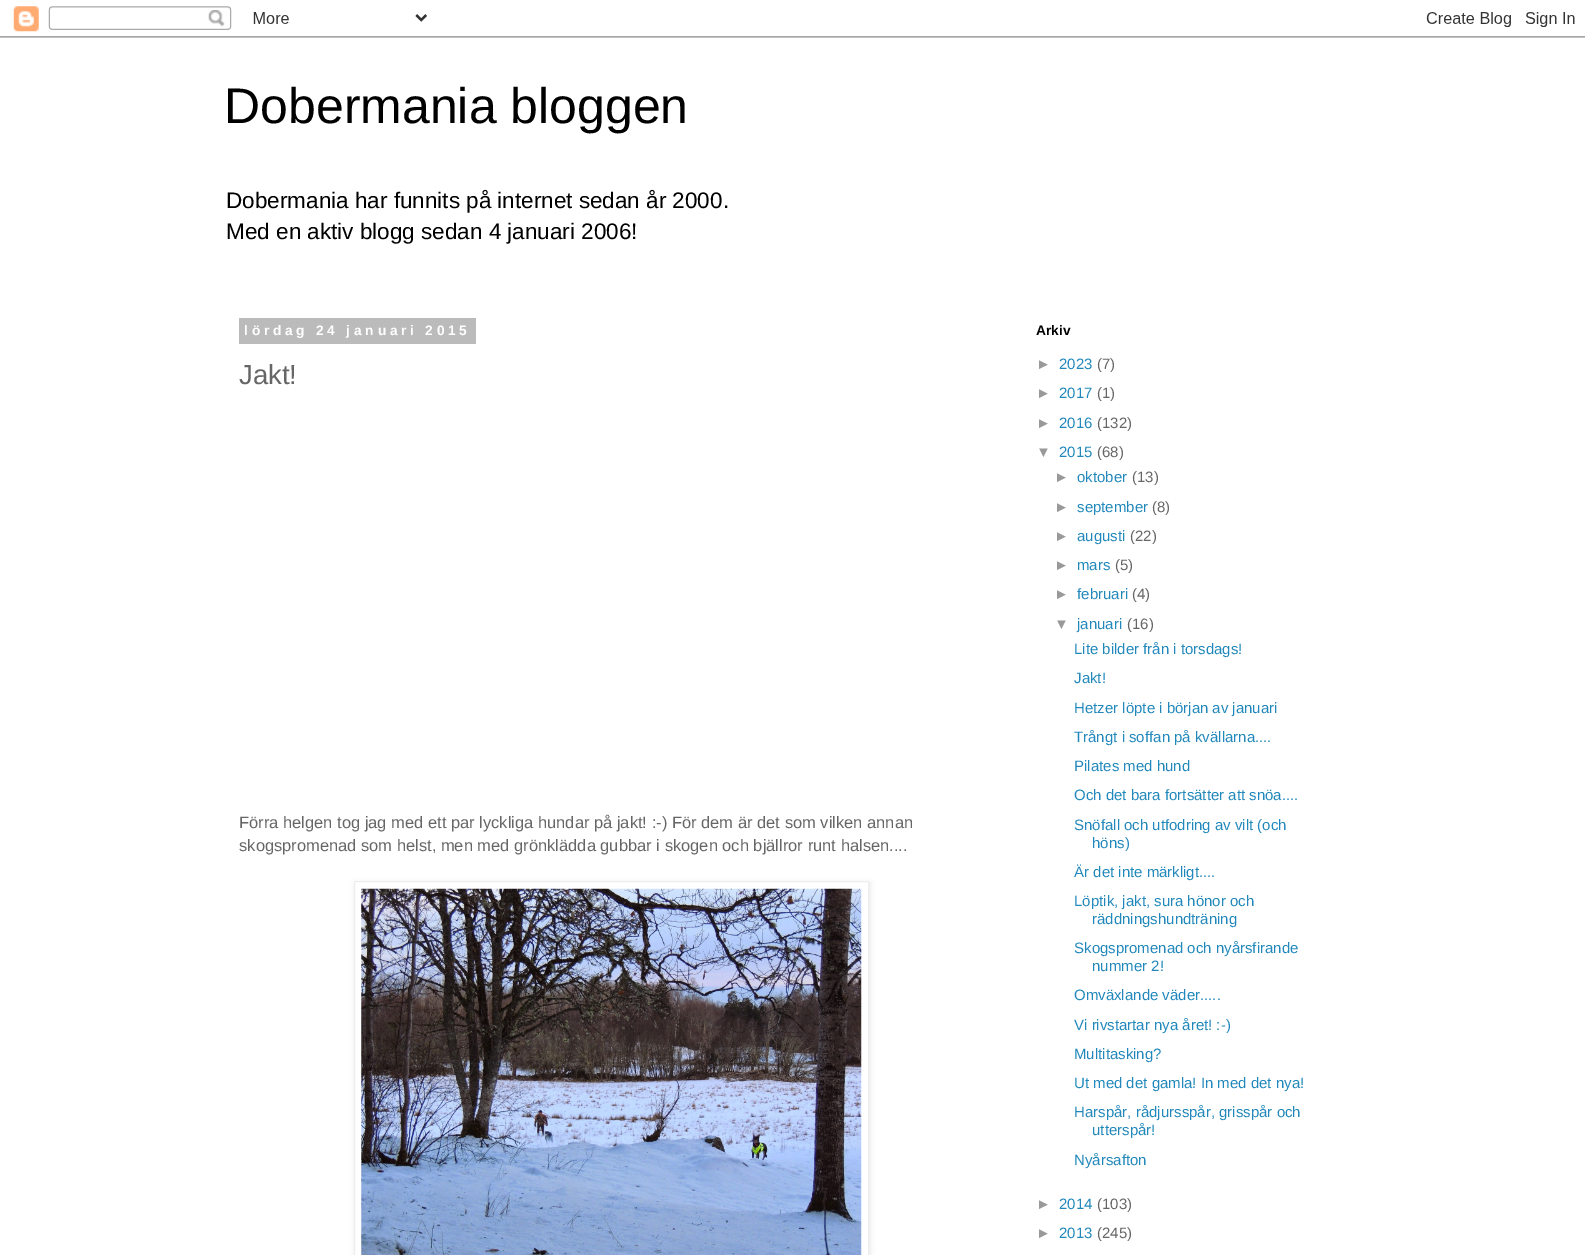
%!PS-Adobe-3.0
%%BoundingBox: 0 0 1585 1255
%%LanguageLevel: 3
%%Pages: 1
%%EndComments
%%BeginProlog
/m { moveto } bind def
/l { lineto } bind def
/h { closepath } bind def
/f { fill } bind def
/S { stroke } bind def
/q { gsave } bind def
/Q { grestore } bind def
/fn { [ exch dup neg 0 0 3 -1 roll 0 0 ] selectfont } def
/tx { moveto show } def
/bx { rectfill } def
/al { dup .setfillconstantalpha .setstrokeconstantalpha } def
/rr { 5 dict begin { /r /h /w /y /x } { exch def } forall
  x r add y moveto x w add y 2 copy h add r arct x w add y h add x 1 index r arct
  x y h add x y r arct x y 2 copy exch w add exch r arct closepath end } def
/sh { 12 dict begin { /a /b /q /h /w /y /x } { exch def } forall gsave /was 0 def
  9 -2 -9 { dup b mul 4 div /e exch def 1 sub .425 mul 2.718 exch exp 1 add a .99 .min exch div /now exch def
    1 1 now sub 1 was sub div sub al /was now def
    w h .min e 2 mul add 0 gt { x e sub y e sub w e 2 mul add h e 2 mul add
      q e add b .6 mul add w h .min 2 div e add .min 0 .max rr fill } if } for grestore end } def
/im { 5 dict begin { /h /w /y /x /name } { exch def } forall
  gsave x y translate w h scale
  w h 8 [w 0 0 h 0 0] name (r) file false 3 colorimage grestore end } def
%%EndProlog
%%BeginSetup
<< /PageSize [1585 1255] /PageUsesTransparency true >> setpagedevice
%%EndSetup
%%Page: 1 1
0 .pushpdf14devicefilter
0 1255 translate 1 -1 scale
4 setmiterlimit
1 setgray
0 0 1585 1255 bx
(image0.raw) 0 6 1585 32 im
/LiberationSans-Regular 50 fn
0 setgray
(Dobermania bloggen) 224 123 tx
/LiberationSans-Regular 22.5 fn
(Dobermania har funnits på internet sedan år 2000.) 226 208 tx
(Med en aktiv blogg sedan 4 januari 2006!) 226 239 tx
0.733 setgray
239 318 237 26 bx
/LiberationSans-Bold 13.75 fn
1 setgray
244 335 m 3.75 0 (lördag 24 januari 2015) ashow
/LiberationSans-Regular 27.5 fn
0.4 setgray
(Jakt!) 239 384 tx
/LiberationSans-Regular 16.5 fn
(Förra helgen tog jag med ett par lyckliga hundar på jakt! :-\) För dem är det som vilken annan) 239 828 tx
(skogspromenad som helst, men med grönklädda gubbar i skogen och bjällror runt halsen....) 239 851 tx
0 setgray
355 883 515 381 0 3 0.1 sh
1 setgray
354.5 881.5 m 868.5 881.5 l 868.5 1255.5 l 354.5 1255.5 l h q f Q
0.933 setgray
S
(image1.raw) 361 888 501 367 im
/LiberationSans-Bold 13.75 fn
0 setgray
(Arkiv) 1036 335 tx
/LiberationSans-Regular 15 fn
0.6 setgray
(►) 1036 369 tx
0.133 0.533 0.733 setrgbcolor
(2023) 1059 369 tx
0.4 setgray
(\(7\)) 1097 369 tx
0.6 setgray
(►) 1036 398 tx
0.133 0.533 0.733 setrgbcolor
(2017) 1059 398 tx
0.4 setgray
(\(1\)) 1097 398 tx
0.6 setgray
(►) 1036 428 tx
0.133 0.533 0.733 setrgbcolor
(2016) 1059 428 tx
0.4 setgray
(\(132\)) 1097 428 tx
0.6 setgray
(▼) 1036 457 tx
0.133 0.533 0.733 setrgbcolor
(2015) 1059 457 tx
0.4 setgray
(\(68\)) 1097 457 tx
0.6 setgray
(►) 1054 482 tx
0.133 0.533 0.733 setrgbcolor
(oktober) 1077 482 tx
0.4 setgray
(\(13\)) 1132 482 tx
0.6 setgray
(►) 1054 512 tx
0.133 0.533 0.733 setrgbcolor
(september) 1077 512 tx
0.4 setgray
(\(8\)) 1152 512 tx
0.6 setgray
(►) 1054 541 tx
0.133 0.533 0.733 setrgbcolor
(augusti) 1077 541 tx
0.4 setgray
(\(22\)) 1130 541 tx
0.6 setgray
(►) 1054 570 tx
0.133 0.533 0.733 setrgbcolor
(mars) 1077 570 tx
0.4 setgray
(\(5\)) 1115 570 tx
0.6 setgray
(►) 1054 599 tx
0.133 0.533 0.733 setrgbcolor
(februari) 1077 599 tx
0.4 setgray
(\(4\)) 1132 599 tx
0.6 setgray
(▼) 1054 629 tx
0.133 0.533 0.733 setrgbcolor
(januari) 1077 629 tx
0.4 setgray
(\(16\)) 1127 629 tx
0.133 0.533 0.733 setrgbcolor
(Lite bilder från i torsdags!) 1074 654 tx
(Jakt!) 1074 683 tx
(Hetzer löpte i början av januari) 1074 713 tx
(Trångt i soffan på kvällarna....) 1074 742 tx
(Pilates med hund) 1074 771 tx
(Och det bara fortsätter att snöa....) 1074 800 tx
(Snöfall och utfodring av vilt \(och) 1074 830 tx
(höns\)) 1092 848 tx
(Är det inte märkligt....) 1074 877 tx
(Löptik, jakt, sura hönor och) 1074 906 tx
(räddningshundträning) 1092 924 tx
(Skogspromenad och nyårsfirande) 1074 953 tx
(nummer 2!) 1092 971 tx
(Omväxlande väder.....) 1074 1000 tx
(Vi rivstartar nya året! :-\)) 1074 1030 tx
(Multitasking?) 1074 1059 tx
(Ut med det gamla! In med det nya!) 1074 1088 tx
(Harspår, rådjursspår, grisspår och) 1074 1117 tx
(utterspår!) 1092 1135 tx
(Nyårsafton) 1074 1165 tx
0.6 setgray
(►) 1036 1209 tx
0.133 0.533 0.733 setrgbcolor
(2014) 1059 1209 tx
0.4 setgray
(\(103\)) 1097 1209 tx
0.6 setgray
(►) 1036 1238 tx
0.133 0.533 0.733 setrgbcolor
(2013) 1059 1238 tx
0.4 setgray
(\(245\)) 1097 1238 tx
.poppdf14devicefilter showpage
%%EOF
